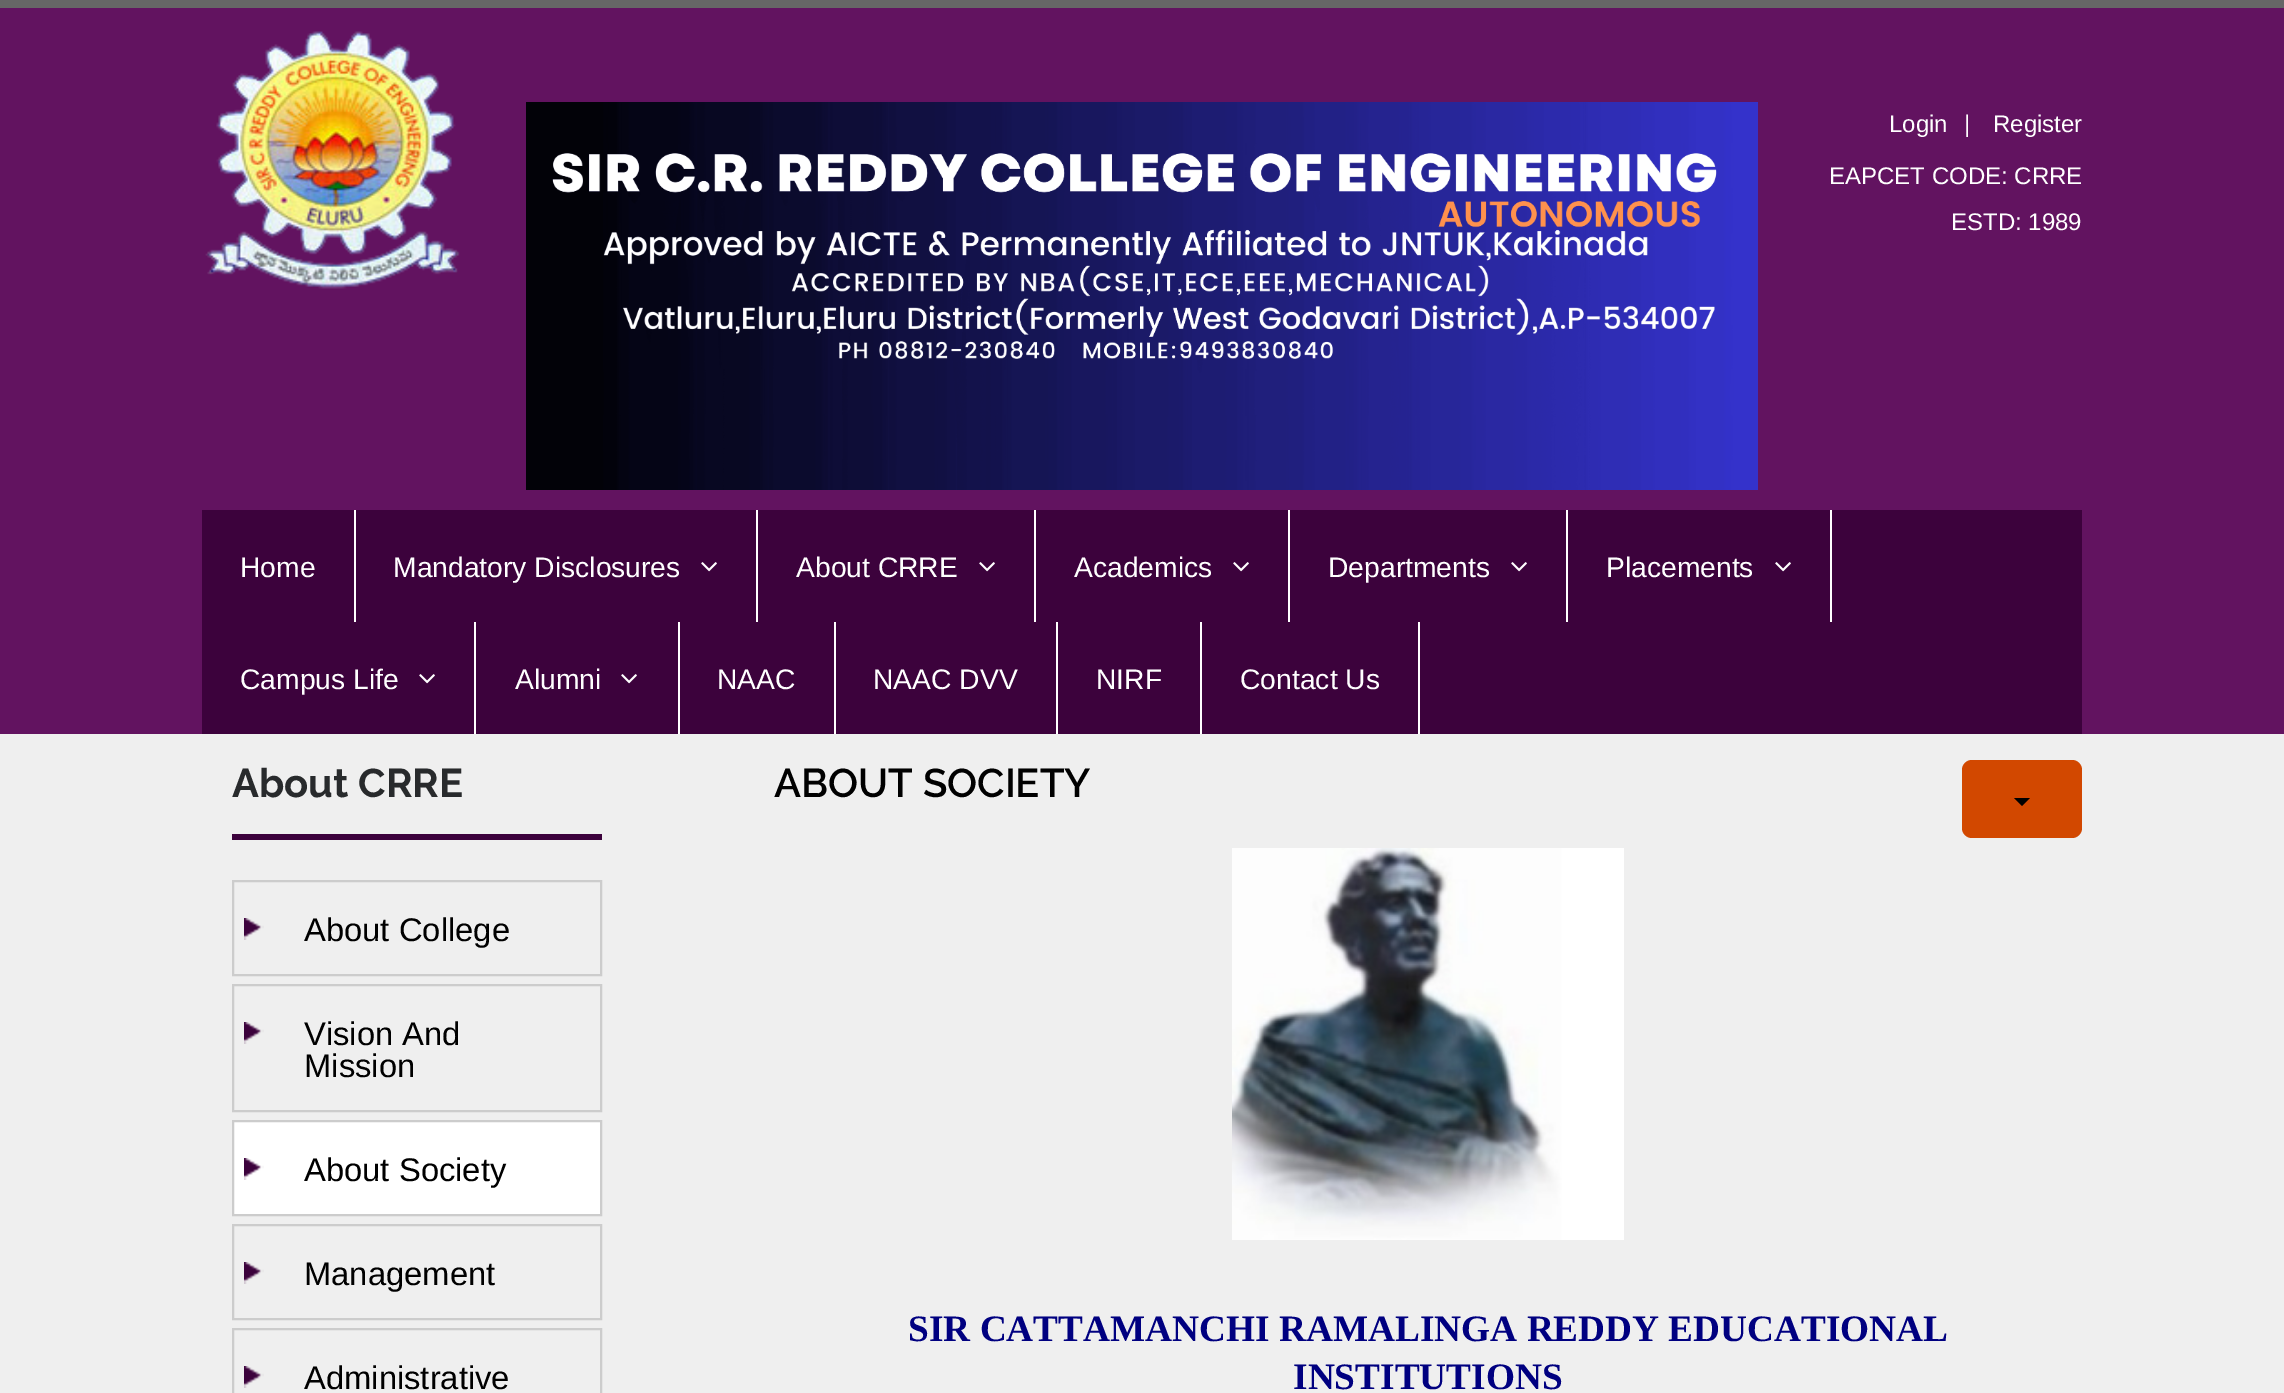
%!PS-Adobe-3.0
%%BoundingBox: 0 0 2284 1393
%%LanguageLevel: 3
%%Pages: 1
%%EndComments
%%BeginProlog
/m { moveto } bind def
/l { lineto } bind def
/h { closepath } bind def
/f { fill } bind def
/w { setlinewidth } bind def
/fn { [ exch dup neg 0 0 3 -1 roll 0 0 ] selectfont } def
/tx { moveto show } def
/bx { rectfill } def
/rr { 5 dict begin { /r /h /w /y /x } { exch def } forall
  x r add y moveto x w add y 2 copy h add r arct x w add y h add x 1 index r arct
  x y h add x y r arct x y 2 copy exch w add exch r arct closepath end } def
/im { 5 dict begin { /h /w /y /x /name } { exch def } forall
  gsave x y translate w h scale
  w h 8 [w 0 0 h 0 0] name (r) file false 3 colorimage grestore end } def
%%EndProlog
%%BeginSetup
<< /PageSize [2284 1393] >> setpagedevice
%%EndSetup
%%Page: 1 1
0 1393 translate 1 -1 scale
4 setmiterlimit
0.937 setgray
0 0 2284 1393 bx
0.4 setgray
0 0 2284 8 bx
0.384 0.075 0.376 setrgbcolor
0 8 2284 726 bx
(image0.raw) 205 31 255 258 im
(image1.raw) 526 102 1232 388 im
/LiberationSans-Regular 24 fn
1 setgray
(Login) 1889 132 tx
(|) 1964 132 tx
(Register) 1993 132 tx
(EAPCET CODE: CRRE) 1829 184 tx
(ESTD: 1989) 1951 230 tx
0.235 0.008 0.235 setrgbcolor
202 510 1880 224 bx
1 setgray
354 510 2 112 bx
/LiberationSans-Regular 28.25 fn
(Home) 240 577 tx
756 510 2 112 bx
(Mandatory Disclosures) 393 577 tx
(image2.raw) 701 562 16 10 im
1034 510 2 112 bx
(About CRRE) 796 577 tx
(image2.raw) 979 562 16 10 im
1288 510 2 112 bx
(Academics) 1074 577 tx
(image2.raw) 1233 562 16 10 im
1566 510 2 112 bx
(Departments) 1328 577 tx
(image2.raw) 1511 562 16 10 im
1830 510 2 112 bx
(Placements) 1606 577 tx
(image2.raw) 1775 562 16 10 im
474 622 2 112 bx
(Campus Life) 240 689 tx
(image2.raw) 419 674 16 10 im
678 622 2 112 bx
(Alumni) 515 689 tx
(image2.raw) 621 674 16 10 im
834 622 2 112 bx
(NAAC) 717 689 tx
1056 622 2 112 bx
(NAAC DVV) 873 689 tx
1200 622 2 112 bx
(NIRF) 1096 689 tx
1418 622 2 112 bx
(Contact Us) 1240 689 tx
0.235 0.008 0.235 setrgbcolor
232 834 370 6 bx
/Raleway-Bold 40 fn
0.157 0.165 0.173 setrgbcolor
(About CRRE) 232 797 tx
(image3.raw) 244 918 20 22 im
0.8 setgray
2 w
233 881 368 94 rectstroke
/LiberationSans-Regular 32.75 fn
0 setgray
(About College) 304 941 tx
(image3.raw) 244 1022 20 22 im
0.8 setgray
233 985 368 126 rectstroke
0 setgray
(Vision And) 304 1045 tx
(Mission) 304 1077 tx
1 setgray
234 1122 366 92 bx
(image4.raw) 244 1158 20 22 im
0.8 setgray
233 1121 368 94 rectstroke
0 setgray
(About Society) 304 1181 tx
(image3.raw) 244 1262 20 22 im
0.8 setgray
233 1225 368 94 rectstroke
0 setgray
(Management) 304 1285 tx
(image3.raw) 244 1366 20 22 im
0.8 setgray
233 1329 368 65 rectstroke
0 setgray
(Administrative) 304 1389 tx
/Raleway-SemiBold 40 fn
(ABOUT SOCIETY) 774 797 tx
0.824 0.282 0 setrgbcolor
1962 760 120 78 10 rr f
0 setgray
2014 798 m 2030 798 l 2022 806 l h f
(image5.raw) 1232 848 392 392 im
/LiberationSerif-Bold 37.3 fn
0 0 0.502 setrgbcolor
(SIR CATTAMANCHI RAMALINGA REDDY EDUCATIONAL) 908 1341 tx
(INSTITUTIONS) 1293 1389 tx
showpage
%%EOF
